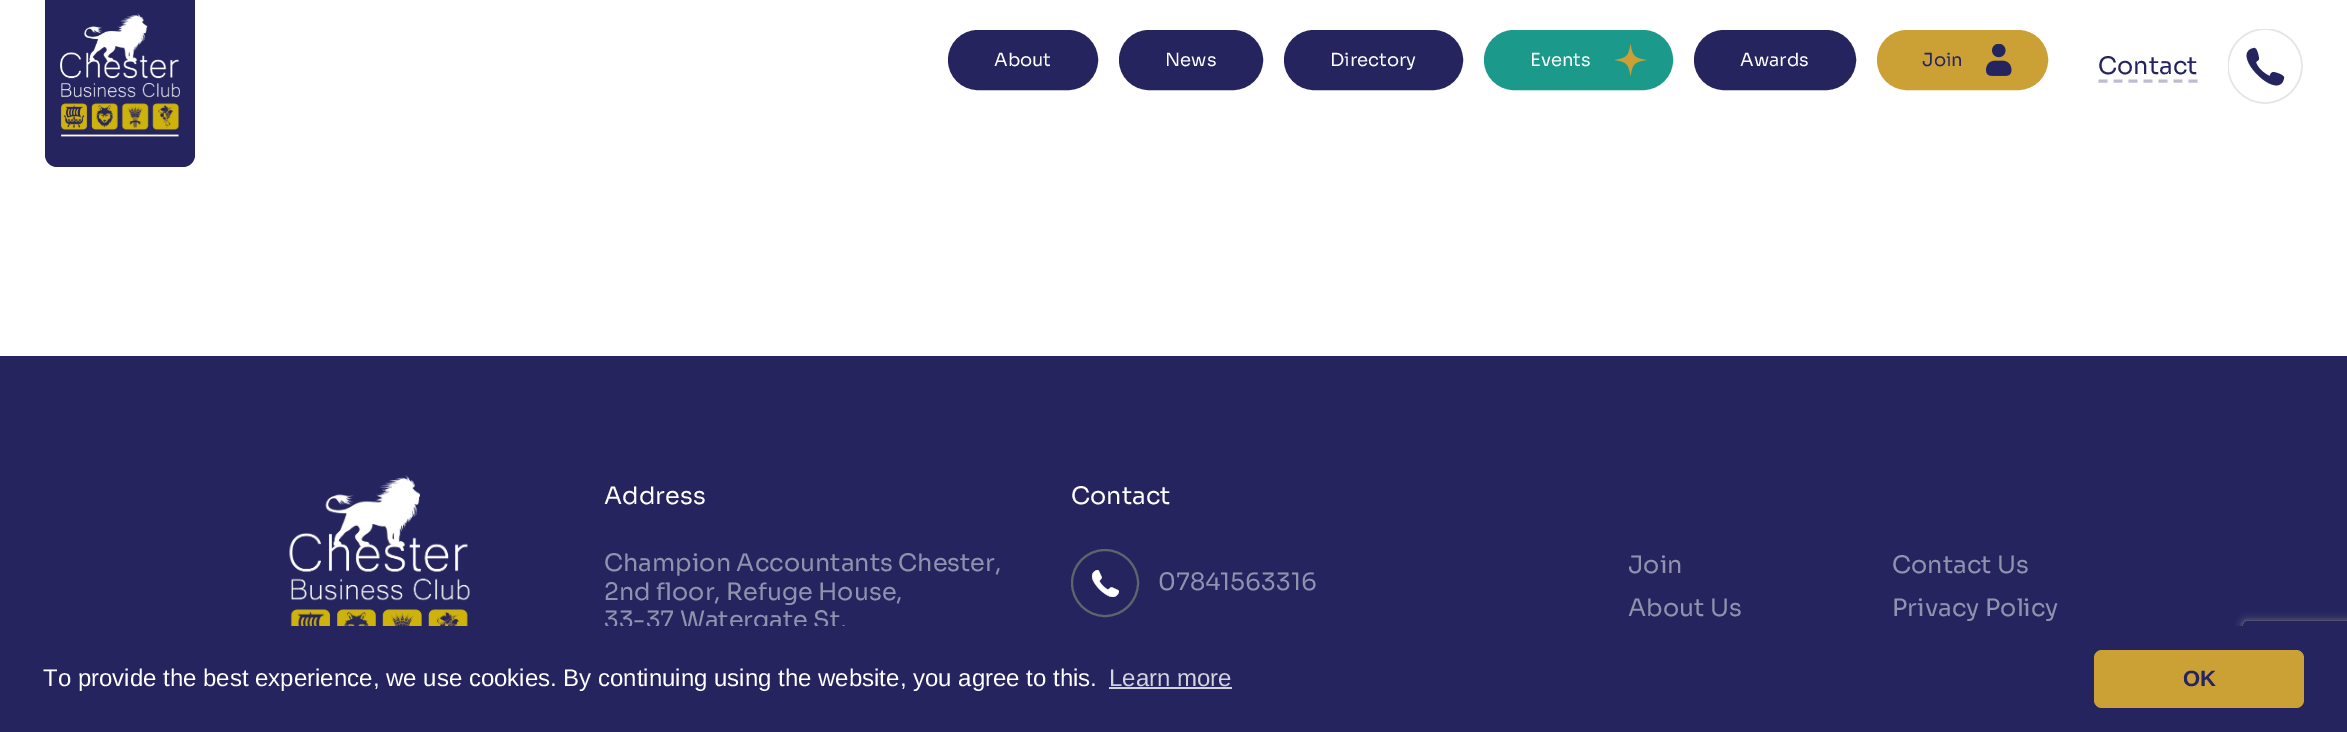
%!PS-Adobe-3.0
%%BoundingBox: 0 0 2347 732
%%LanguageLevel: 3
%%Pages: 1
%%EndComments
%%BeginProlog
/m { moveto } bind def
/l { lineto } bind def
/c { curveto } bind def
/h { closepath } bind def
/f { fill } bind def
/S { stroke } bind def
/q { gsave } bind def
/Q { grestore } bind def
/w { setlinewidth } bind def
/fn { [ exch dup neg 0 0 3 -1 roll 0 0 ] selectfont } def
/tx { moveto show } def
/bx { rectfill } def
/al { dup .setfillconstantalpha .setstrokeconstantalpha } def
/ci { newpath 0 360 arc closepath } def
/rr { 5 dict begin { /r /h /w /y /x } { exch def } forall
  x r add y moveto x w add y 2 copy h add r arct x w add y h add x 1 index r arct
  x y h add x y r arct x y 2 copy exch w add exch r arct closepath end } def
/sh { 12 dict begin { /a /b /q /h /w /y /x } { exch def } forall gsave /was 0 def
  9 -2 -9 { dup b mul 4 div /e exch def 1 sub .425 mul 2.718 exch exp 1 add a .99 .min exch div /now exch def
    1 1 now sub 1 was sub div sub al /was now def
    w h .min e 2 mul add 0 gt { x e sub y e sub w e 2 mul add h e 2 mul add
      q e add b .6 mul add w h .min 2 div e add .min 0 .max rr fill } if } for grestore end } def
/im { 5 dict begin { /h /w /y /x /name } { exch def } forall
  gsave x y translate w h scale
  w h 8 [w 0 0 h 0 0] name (r) file false 3 colorimage grestore end } def
%%EndProlog
%%BeginSetup
<< /PageSize [2347 732] /PageUsesTransparency true >> setpagedevice
%%EndSetup
%%Page: 1 1
0 .pushpdf14devicefilter
0 732 translate 1 -1 scale
4 setmiterlimit
1 setgray
0 0 2347 732 bx
0.145 0.141 0.373 setrgbcolor
45 -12 m 195 -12 l 195 155 l 195 161.5 189.5 167 183 167 c 57 167 l 50.5 167 45 161.5 45 155 c h f
(image0.raw) 60 13 120 124 im
949 31 148 58 29 rr q f Q
2 w
S
/Sora-Regular 18 fn
1 setgray
(About) 994 66 tx
0.145 0.141 0.373 setrgbcolor
1120 31 142 58 29 rr q f Q
S
1 setgray
(News) 1165 66 tx
0.145 0.141 0.373 setrgbcolor
1285 31 177 58 29 rr q f Q
S
1 setgray
(Directory) 1330 66 tx
0.106 0.6 0.545 setrgbcolor
1485 31 187 58 29 rr q f Q
S
1 setgray
(Events) 1530 66 tx
(image1.raw) 1614 44 33 33 im
0.145 0.141 0.373 setrgbcolor
1695 31 160 58 29 rr q f Q
S
1 setgray
(Awards) 1740 66 tx
0.796 0.631 0.208 setrgbcolor
1878 31 169 58 29 rr q f Q
S
0.145 0.141 0.373 setrgbcolor
(Join) 1922 66 tx
(image2.raw) 1986 44 26 32 im
0.745 0.741 0.812 setrgbcolor
3 w
[9 6] 0 setdash
2098.5 81 m 2197.5 81 l S
/Sora-Regular 24 fn
0.145 0.141 0.373 setrgbcolor
(Contact) 2098 74 tx
2273 72 m 2271 73 2270 74 2270 76 c 2264 74 2257 67 2256 62 c 2257 61 2259 60 2259 59 c 2259 57 2257 47 2254 48 c 2228 53 2279 104 2284 78 c 2285 75 2275 72 2273 72 c eofill
q
2228 29 75 75 rectclip
0.89 0.898 0.902 setrgbcolor
1.5 w
[] 0 setdash
2265 66 37 ci S
Q
0 356 2347 270 bx
(image3.raw) 289 475 181 151 im
1 setgray
(Address) 604 504 tx
0.573 0.573 0.686 setrgbcolor
(Champion Accountants Chester,) 604 571 tx
(2nd floor, Refuge House,) 604 600 tx
(33-37 Watergate St,) 604 628 tx
1 setgray
(Contact) 1071 504 tx
(image4.raw) 1092 570 27 27 im
0.376 0.396 0.427 setrgbcolor
2 w
[] 0 setdash
1105 583 33 ci S
0.573 0.573 0.686 setrgbcolor
(07841563316) 1158 590 tx
(Join) 1628 573 tx
(Contact Us) 1892 573 tx
(About Us) 1628 616 tx
(Privacy Policy) 1892 616 tx
q
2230 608 m 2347 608 l 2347 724 l 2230 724 l h 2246 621 m 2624 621 l 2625.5 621 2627 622.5 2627 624 c 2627 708 l 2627 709.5 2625.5 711 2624 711 c 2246 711 l 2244.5 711 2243 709.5 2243 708 c 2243 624 l 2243 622.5 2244.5 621 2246 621 c h eoclip newpath
0.502 setgray
2243 621 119 90 3 4 1 sh
Q
0.145 0.141 0.373 setrgbcolor
0 626 2347 106 bx
/LiberationSans-Regular 24 fn
1 setgray
(To provide the best experience, we use cookies. By continuing using the website, you agree to this.) 43 686 tx
0.827 0.827 0.875 setrgbcolor
(Learn more) 1109 686 tx
1109 687 123 2 bx
0.796 0.631 0.208 setrgbcolor
2094 650 210 58 8 rr f
/LiberationSans-Bold 22 fn
0.145 0.141 0.373 setrgbcolor
(OK) 2183 686 tx
.poppdf14devicefilter showpage
%%EOF
